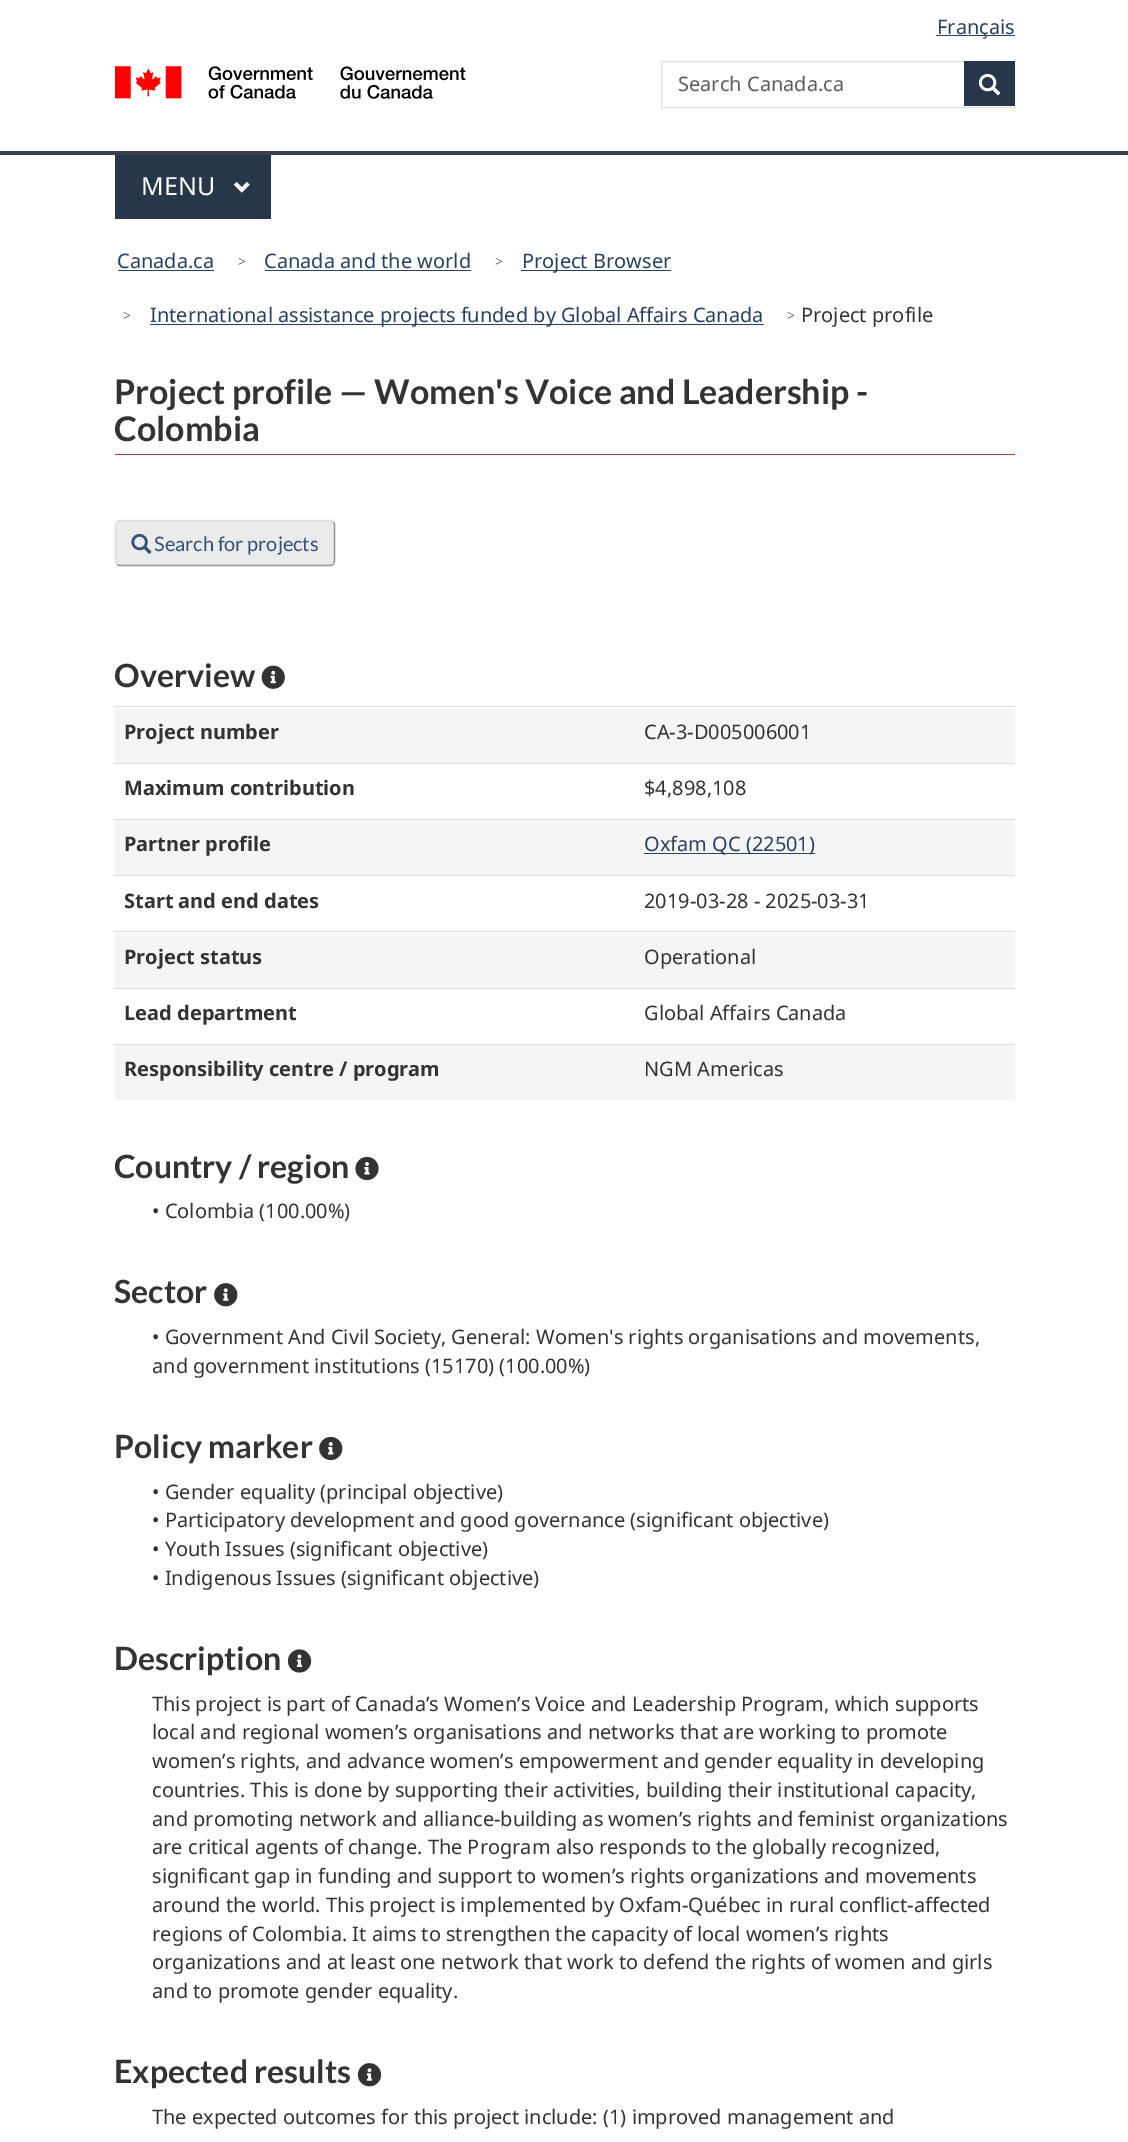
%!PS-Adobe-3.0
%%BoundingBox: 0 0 1128 2142
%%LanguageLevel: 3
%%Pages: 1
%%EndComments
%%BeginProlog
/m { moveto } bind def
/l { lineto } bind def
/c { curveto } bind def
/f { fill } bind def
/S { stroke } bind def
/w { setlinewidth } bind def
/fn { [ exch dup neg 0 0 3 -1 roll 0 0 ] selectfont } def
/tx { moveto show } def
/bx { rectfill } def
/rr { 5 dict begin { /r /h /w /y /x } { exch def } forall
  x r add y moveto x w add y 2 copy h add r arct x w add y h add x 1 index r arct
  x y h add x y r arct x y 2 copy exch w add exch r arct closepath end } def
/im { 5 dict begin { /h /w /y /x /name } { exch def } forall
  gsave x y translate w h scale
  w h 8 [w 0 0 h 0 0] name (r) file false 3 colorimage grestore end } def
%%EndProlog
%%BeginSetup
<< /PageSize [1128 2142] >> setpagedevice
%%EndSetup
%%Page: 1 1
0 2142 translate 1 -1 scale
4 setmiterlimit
1 setgray
0 0 1128 2142 bx
0.157 0.255 0.384 setrgbcolor
936 35 79 1 bx
/NotoSans-Regular 20 fn
(Français) 937 34 tx
(image0.raw) 115 66 351 33 im
0.878 setgray
661.5 61.5 353 46 rectstroke
0.361 setgray
(Search Canada.ca) 678 91 tx
0.149 0.216 0.29 setrgbcolor
964 61 51 45 bx
(image1.raw) 978 73 23 23 im
0.22 0.255 0.302 setrgbcolor
0 151 1128 4 bx
0.149 0.216 0.29 setrgbcolor
115 155 156 64 bx
/NotoSans-Regular 25 fn
1 setgray
(MENU) 141 195 tx
(image2.raw) 233 181 17 12 im
/NotoSans-Regular 20 fn
0.157 0.255 0.384 setrgbcolor
(Canada.ca) 117 268 tx
118 270 96 1 bx
/LiberationSerif-Regular 14 fn
0.2 setgray
(>) 238 266 tx
/NotoSans-Regular 20 fn
0.157 0.255 0.384 setrgbcolor
(Canada and the world) 264 268 tx
265 270 206 1 bx
/LiberationSerif-Regular 14 fn
0.2 setgray
(>) 495 266 tx
0.157 0.255 0.384 setrgbcolor
521 270 150 1 bx
/NotoSans-Regular 20 fn
(Project Browser) 522 268 tx
/LiberationSerif-Regular 14 fn
0.2 setgray
(>) 123 320 tx
0.157 0.255 0.384 setrgbcolor
150 324 614 1 bx
/NotoSans-Regular 20 fn
(International assistance projects funded by Global Affairs Canada) 150 322 tx
/LiberationSerif-Regular 14 fn
0.2 setgray
(>) 787 320 tx
/NotoSans-Regular 20 fn
(Project profile) 801 322 tx
0.686 0.235 0.263 setrgbcolor
115 454 900 1 bx
/Lato-Bold 34 fn
0.2 setgray
(Project profile — Women's Voice and Leadership -) 114 404 tx
(Colombia) 114 441 tx
0.918 0.922 0.929 setrgbcolor
115 520 220 46 5 rr f
0.576 0.58 0.588 setrgbcolor
1.2 w
333 522 m 334 522.5 334.5 524 334.5 525 c 334.5 561 l 334.5 562.5 334 563.5 333 564.5 c 332.5 565 331 565.5 330 565.5 c 120 565.5 l 119 565.5 117.5 565 117 564.5 c S
0.863 0.871 0.882 setrgbcolor
117 564.5 m 116 563.5 115.5 562.5 115.5 561 c 115.5 525 l 115.5 524 116 522.5 117 522 c 117.5 521 119 520.5 120 520.5 c 330 520.5 l 331 520.5 332.5 521 333 522 c S
(image3.raw) 131 533 21 21 im
/Lato-Regular 20 fn
0.2 0.314 0.459 setrgbcolor
(Search for projects) 154 551 tx
/Lato-Bold 32 fn
0.2 setgray
(Overview) 114 687 tx
(image4.raw) 261 665 24 24 im
0.961 setgray
115 708 900 55 bx
/NotoSans-Bold 20 fn
0.2 setgray
(Project number) 124 739 tx
0.867 setgray
114 706 901 1 bx
/NotoSans-Regular 20 fn
0.2 setgray
(CA-3-D005006001) 644 739 tx
/NotoSans-Bold 20 fn
(Maximum contribution) 124 795 tx
0.867 setgray
114 763 901 1 bx
/NotoSans-Regular 20 fn
0.2 setgray
($4,898,108) 644 795 tx
0.961 setgray
115 820 900 55 bx
/NotoSans-Bold 20 fn
0.2 setgray
(Partner profile) 124 851 tx
0.867 setgray
114 819 901 1 bx
0.157 0.255 0.384 setrgbcolor
644 853 171 1 bx
/NotoSans-Regular 20 fn
(Oxfam QC \(22501\)) 644 851 tx
/NotoSans-Bold 20 fn
0.2 setgray
(Start and end dates) 124 908 tx
0.867 setgray
114 875 901 1 bx
/NotoSans-Regular 20 fn
0.2 setgray
(2019-03-28 - 2025-03-31) 644 908 tx
0.961 setgray
115 933 900 55 bx
/NotoSans-Bold 20 fn
0.2 setgray
(Project status) 124 964 tx
0.867 setgray
114 931 901 1 bx
/NotoSans-Regular 20 fn
0.2 setgray
(Operational) 644 964 tx
/NotoSans-Bold 20 fn
(Lead department) 124 1020 tx
0.867 setgray
114 988 901 1 bx
/NotoSans-Regular 20 fn
0.2 setgray
(Global Affairs Canada) 644 1020 tx
0.961 setgray
115 1045 900 55 bx
/NotoSans-Bold 20 fn
0.2 setgray
(Responsibility centre / program) 124 1076 tx
0.867 setgray
114 1044 901 1 bx
/NotoSans-Regular 20 fn
0.2 setgray
(NGM Americas) 644 1076 tx
/Lato-Bold 32 fn
(Country / region) 114 1178 tx
(image5.raw) 355 1156 24 25 im
/NotoSans-Regular 20 fn
(• Colombia \(100.00%\)) 152 1218 tx
/Lato-Bold 32 fn
(Sector) 114 1303 tx
(image6.raw) 214 1283 24 24 im
/NotoSans-Regular 20 fn
(• Government And Civil Society, General: Women's rights organisations and movements,) 152 1344 tx
(and government institutions \(15170\) \(100.00%\)) 152 1373 tx
/Lato-Bold 32 fn
(Policy marker) 114 1458 tx
(image7.raw) 319 1436 24 25 im
/NotoSans-Regular 20 fn
(• Gender equality \(principal objective\)) 152 1499 tx
(• Participatory development and good governance \(significant objective\)) 152 1527 tx
(• Youth Issues \(significant objective\)) 152 1556 tx
(• Indigenous Issues \(significant objective\)) 152 1585 tx
/Lato-Bold 32 fn
(Description) 114 1670 tx
(image8.raw) 287 1649 25 24 im
/NotoSans-Regular 20 fn
(This project is part of Canada’s Women’s Voice and Leadership Program, which supports) 152 1711 tx
(local and regional women’s organisations and networks that are working to promote) 152 1739 tx
(women’s rights, and advance women’s empowerment and gender equality in developing) 152 1768 tx
(countries. This is done by supporting their activities, building their institutional capacity,) 152 1797 tx
(and promoting network and alliance-building as women’s rights and feminist organizations) 152 1826 tx
(are critical agents of change. The Program also responds to the globally recognized,) 152 1854 tx
(significant gap in funding and support to women’s rights organizations and movements) 152 1883 tx
(around the world. This project is implemented by Oxfam-Québec in rural conflict-affected) 152 1912 tx
(regions of Colombia. It aims to strengthen the capacity of local women’s rights) 152 1941 tx
(organizations and at least one network that work to defend the rights of women and girls) 152 1969 tx
(and to promote gender equality.) 152 1998 tx
/Lato-Bold 32 fn
(Expected results) 114 2083 tx
(image9.raw) 357 2063 25 24 im
/NotoSans-Regular 20 fn
(The expected outcomes for this project include: \(1\) improved management and) 152 2124 tx
showpage
%%EOF
